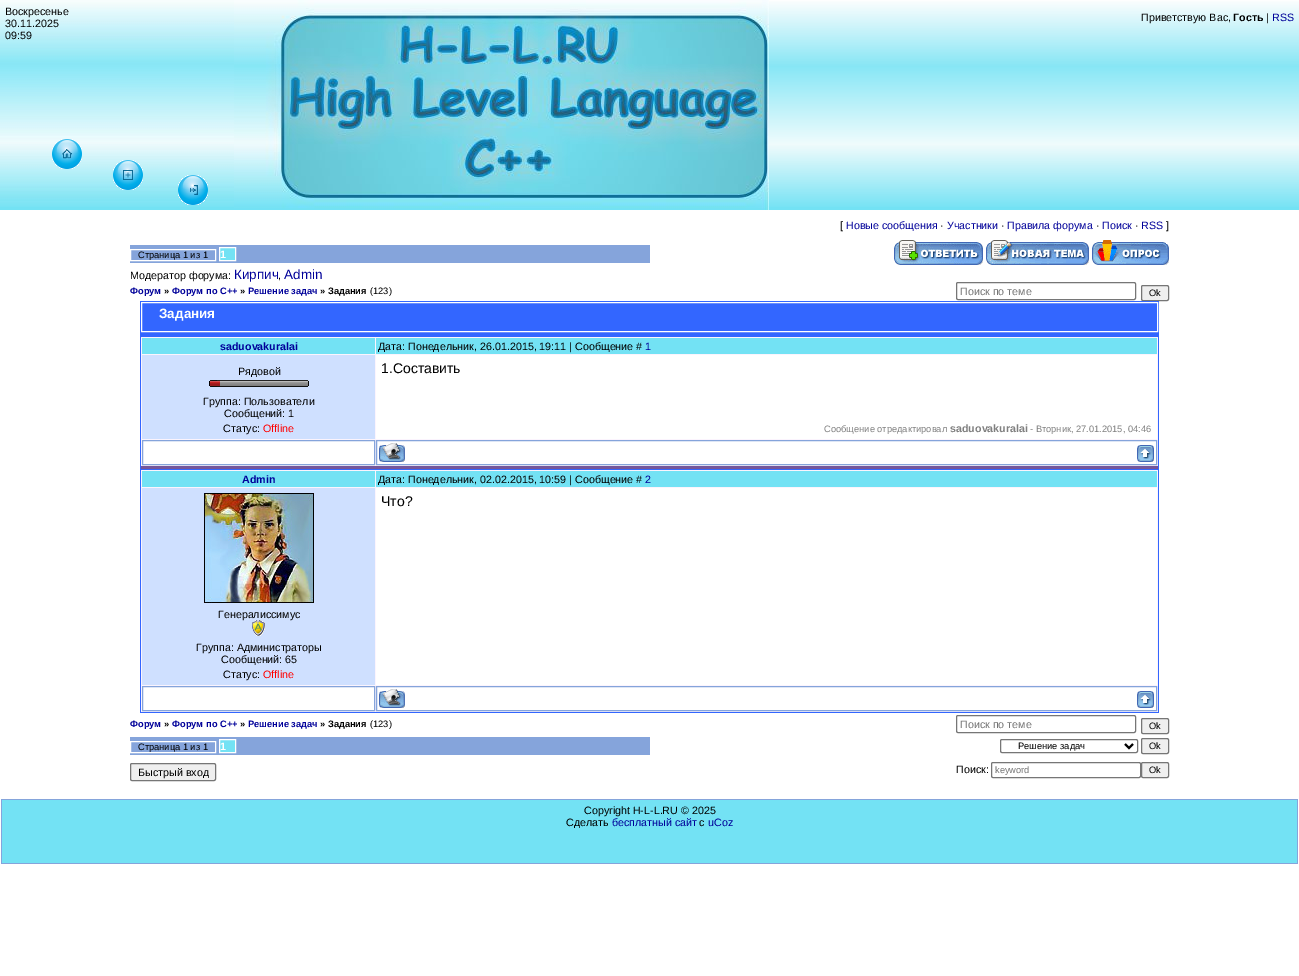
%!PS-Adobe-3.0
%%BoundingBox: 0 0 1299 976
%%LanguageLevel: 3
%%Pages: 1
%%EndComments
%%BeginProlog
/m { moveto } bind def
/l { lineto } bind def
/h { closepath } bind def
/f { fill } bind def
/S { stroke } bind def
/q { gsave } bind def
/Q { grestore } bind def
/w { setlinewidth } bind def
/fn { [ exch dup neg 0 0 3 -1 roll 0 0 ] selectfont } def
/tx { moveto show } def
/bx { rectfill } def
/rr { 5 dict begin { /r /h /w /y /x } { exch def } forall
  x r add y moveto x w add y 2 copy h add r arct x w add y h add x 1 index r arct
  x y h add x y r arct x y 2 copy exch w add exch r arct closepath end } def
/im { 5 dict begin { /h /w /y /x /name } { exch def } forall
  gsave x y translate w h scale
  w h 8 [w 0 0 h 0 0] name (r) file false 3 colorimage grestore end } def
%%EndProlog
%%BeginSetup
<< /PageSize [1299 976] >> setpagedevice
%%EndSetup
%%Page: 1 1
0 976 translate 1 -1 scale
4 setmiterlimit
1 setgray
0 0 1299 976 bx
0.451 0.886 0.957 setrgbcolor
0 207 1299 3 bx
(image0.raw) 0 0 1299 207 im
(image1.raw) 0 0 234 201 im
/LiberationSans-Regular 10.7 fn
0 setgray
(Воскресенье) 5 15 tx
(30.11.2025) 5 27 tx
(09:59) 5 39 tx
(image2.raw) 234 0 535 210 im
(Приветствую Вас,) 1141 21 tx
/LiberationSans-Bold 10.7 fn
(Гость) 1233 21 tx
/LiberationSans-Regular 10.7 fn
(|) 1266 21 tx
0 0 0.6 setrgbcolor
(RSS) 1272 21 tx
(image3.raw) 52 139 30 30 im
(image4.raw) 113 160 30 30 im
(image5.raw) 178 175 30 30 im
0 setgray
([) 840 229 tx
0 0 0.6 setrgbcolor
(Новые сообщения) 846 229 tx
0 setgray
(·) 940 229 tx
0 0 0.6 setrgbcolor
(Участники) 947 229 tx
0 setgray
(·) 1001 229 tx
0 0 0.6 setrgbcolor
(Правила форума) 1007 229 tx
0 setgray
(·) 1096 229 tx
0 0 0.6 setrgbcolor
(Поиск) 1102 229 tx
0 setgray
(·) 1135 229 tx
0 0 0.6 setrgbcolor
(RSS) 1141 229 tx
0 setgray
(]) 1166 229 tx
0.522 0.643 0.859 setrgbcolor
130 245 520 18 bx
1 setgray
130.5 249.5 85 11 rectstroke
/LiberationSans-Regular 9.3 fn
0 setgray
(Страница 1 из 1) 138 258 tx
0.451 0.886 0.957 setrgbcolor
219.5 247.5 m 235.5 247.5 l 235.5 260.5 l 219.5 260.5 l h q f Q
1 setgray
S
/LiberationSans-Bold 10.7 fn
(1) 220 258 tx
(image6.raw) 894 240 89 25 im
(image7.raw) 986 240 103 25 im
(image8.raw) 1092 240 77 25 im
/LiberationSans-Regular 10.7 fn
0 setgray
(Модератор форума:) 130 279 tx
/LiberationSans-Regular 13.5 fn
0 0 0.6 setrgbcolor
(Кирпич) 234 279 tx
/LiberationSans-Regular 10.7 fn
0 setgray
(,) 278 279 tx
/LiberationSans-Regular 13.5 fn
0 0 0.6 setrgbcolor
(Admin) 284 279 tx
/LiberationSans-Bold 9.3 fn
(Форум) 130 294 tx
0 setgray
(») 164 294 tx
0 0 0.6 setrgbcolor
(Форум по C++) 172 294 tx
0 setgray
(») 240 294 tx
0 0 0.6 setrgbcolor
(Решение задач) 248 294 tx
0 setgray
(» Задания) 320 294 tx
/LiberationSans-Regular 9.3 fn
(\(123\)) 370 294 tx
0.463 setgray
956.5 282.5 179 17 1.5 rr S
/LiberationSans-Regular 10.7 fn
0.459 setgray
(Поиск по теме) 960 295 tx
0.937 setgray
1141.5 285.5 27 15 1.5 rr q f Q
0.463 setgray
S
/LiberationSans-Regular 9.3 fn
0 setgray
(Ok) 1149 296 tx
0.2 0.4 1 setrgbcolor
140 301 1019 412 bx
1 setgray
141.5 302.5 1016 29 rectstroke
/LiberationSans-Bold 13.5 fn
(Задания) 159 318 tx
0.984 0.957 0.992 setrgbcolor
141 337 1017 129 bx
0.459 0.337 0.604 setrgbcolor
141 466 1017 3 bx
0.451 0.886 0.957 setrgbcolor
142 338 233 16 bx
/LiberationSans-Bold 10.7 fn
0 0 0.6 setrgbcolor
(saduovakuralai) 220 350 tx
0.451 0.886 0.957 setrgbcolor
376 338 781 16 bx
/LiberationSans-Regular 10.7 fn
0 setgray
(Дата: Понедельник, 26.01.2015, 19:11 | Сообщение #) 378 350 tx
0 0 0.6 setrgbcolor
(1) 645 350 tx
0.812 0.878 1 setrgbcolor
142 355 233 84 bx
0 setgray
(Рядовой) 238 375 tx
(image9.raw) 209 380 100 7 im
(Группа: Пользователи) 203 405 tx
(Сообщений: 1) 224 417 tx
(Статус:) 223 432 tx
1 0 0 setrgbcolor
(Offline) 263 432 tx
1 setgray
376 355 781 84 bx
/LiberationSans-Regular 14 fn
0 setgray
(1.Составить) 381 373 tx
/LiberationSans-Regular 9.3 fn
0.502 setgray
(Сообщение отредактировал) 824 432 tx
/LiberationSans-Bold 10.7 fn
(saduovakuralai) 950 432 tx
/LiberationSans-Regular 9.3 fn
(- Вторник, 27.01.2015, 04:46) 1030 432 tx
1 setgray
142.5 440.5 m 374.5 440.5 l 374.5 464.5 l 142.5 464.5 l h q f Q
0.522 0.643 0.859 setrgbcolor
S
1 setgray
376.5 440.5 m 1156.5 440.5 l 1156.5 464.5 l 376.5 464.5 l h q f Q
0.522 0.643 0.859 setrgbcolor
S
(image10.raw) 379 443 26 19 im
(image11.raw) 1137 445 17 17 im
0.984 0.957 0.992 setrgbcolor
141 470 1017 242 bx
0.451 0.886 0.957 setrgbcolor
142 471 233 16 bx
/LiberationSans-Bold 10.7 fn
0 0 0.6 setrgbcolor
(Admin) 242 483 tx
0.451 0.886 0.957 setrgbcolor
376 471 781 16 bx
/LiberationSans-Regular 10.7 fn
0 setgray
(Дата: Понедельник, 02.02.2015, 10:59 | Сообщение #) 378 483 tx
0 0 0.6 setrgbcolor
(2) 645 483 tx
1 setgray
376 488 781 197 bx
/LiberationSans-Regular 14 fn
0 setgray
(Что?) 381 506 tx
0.812 0.878 1 setrgbcolor
142 488 233 197 bx
(image12.raw) 204 493 110 110 im
/LiberationSans-Regular 10.7 fn
0 setgray
(Генералиссимус) 218 618 tx
(image13.raw) 252 620 13 16 im
(Группа: Администраторы) 196 651 tx
(Сообщений: 65) 221 663 tx
(Статус:) 223 678 tx
1 0 0 setrgbcolor
(Offline) 263 678 tx
1 setgray
142.5 686.5 m 374.5 686.5 l 374.5 710.5 l 142.5 710.5 l h q f Q
0.522 0.643 0.859 setrgbcolor
S
1 setgray
376.5 686.5 m 1156.5 686.5 l 1156.5 710.5 l 376.5 710.5 l h q f Q
0.522 0.643 0.859 setrgbcolor
S
(image10.raw) 379 689 26 19 im
(image11.raw) 1137 691 17 17 im
/LiberationSans-Bold 9.3 fn
0 0 0.6 setrgbcolor
(Форум) 130 727 tx
0 setgray
(») 164 727 tx
0 0 0.6 setrgbcolor
(Форум по C++) 172 727 tx
0 setgray
(») 240 727 tx
0 0 0.6 setrgbcolor
(Решение задач) 248 727 tx
0 setgray
(» Задания) 320 727 tx
/LiberationSans-Regular 9.3 fn
(\(123\)) 370 727 tx
0.463 setgray
956.5 715.5 179 17 1.5 rr S
/LiberationSans-Regular 10.7 fn
0.459 setgray
(Поиск по теме) 960 728 tx
0.937 setgray
1141.5 718.5 27 15 1.5 rr q f Q
0.463 setgray
S
/LiberationSans-Regular 9.3 fn
0 setgray
(Ok) 1149 729 tx
0.522 0.643 0.859 setrgbcolor
130 737 520 18 bx
1 setgray
130.5 741.5 85 11 rectstroke
0 setgray
(Страница 1 из 1) 138 750 tx
0.451 0.886 0.957 setrgbcolor
219.5 739.5 m 235.5 739.5 l 235.5 752.5 l 219.5 752.5 l h q f Q
1 setgray
S
/LiberationSans-Bold 10.7 fn
(1) 220 750 tx
0.463 setgray
1000.5 739.5 137 13 1.5 rr S
0 setgray
2 w
1125 744 m 1129 748 l 1133 744 l S
/LiberationSans-Regular 9.3 fn
(Решение задач) 1018 749 tx
0.937 setgray
1141.5 738.5 27 15 1.5 rr q f Q
0.463 setgray
1 w
S
0 setgray
(Ok) 1149 749 tx
0.937 setgray
130.5 763.5 85 17 1.5 rr q f Q
0.463 setgray
S
/LiberationSans-Regular 10.7 fn
0 setgray
(Быстрый вход) 138 776 tx
(Поиск:) 956 773 tx
0.463 setgray
991.5 762.5 149 15 1.5 rr S
/LiberationSans-Regular 9.3 fn
0.459 setgray
(keyword) 995 773 tx
0.937 setgray
1141.5 762.5 27 15 1.5 rr q f Q
0.463 setgray
S
0 setgray
(Ok) 1149 773 tx
0.522 0.643 0.859 setrgbcolor
1 799 1297 65 bx
0.451 0.886 0.957 setrgbcolor
2 800 1295 63 bx
/LiberationSans-Regular 10.7 fn
0 setgray
(Copyright H-L-L.RU © 2025) 584 814 tx
(Сделать) 566 826 tx
0 0 0.6 setrgbcolor
(бесплатный сайт) 612 826 tx
0 setgray
(с) 699 826 tx
0 0 0.6 setrgbcolor
(uCoz) 708 826 tx
showpage
%%EOF
